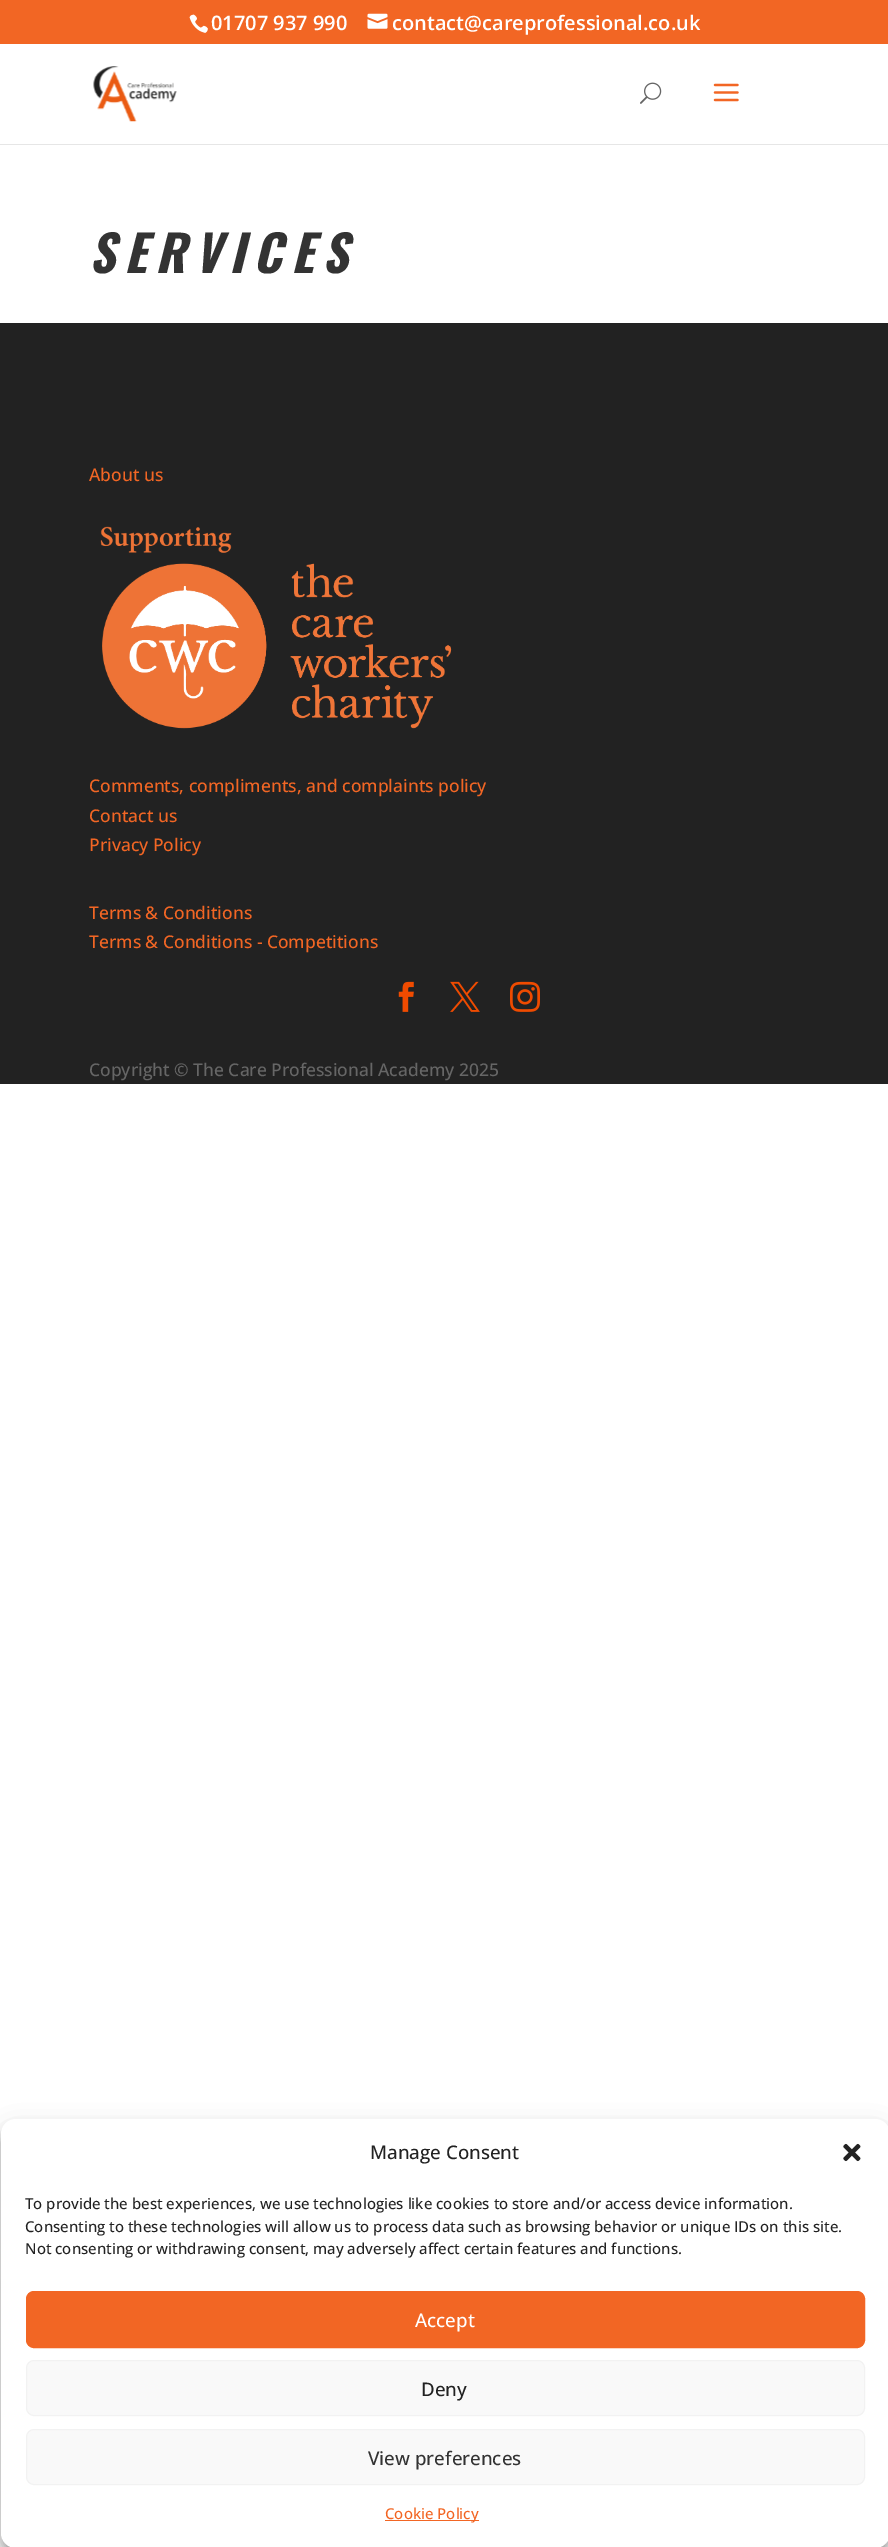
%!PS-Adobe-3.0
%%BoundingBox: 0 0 888 2547
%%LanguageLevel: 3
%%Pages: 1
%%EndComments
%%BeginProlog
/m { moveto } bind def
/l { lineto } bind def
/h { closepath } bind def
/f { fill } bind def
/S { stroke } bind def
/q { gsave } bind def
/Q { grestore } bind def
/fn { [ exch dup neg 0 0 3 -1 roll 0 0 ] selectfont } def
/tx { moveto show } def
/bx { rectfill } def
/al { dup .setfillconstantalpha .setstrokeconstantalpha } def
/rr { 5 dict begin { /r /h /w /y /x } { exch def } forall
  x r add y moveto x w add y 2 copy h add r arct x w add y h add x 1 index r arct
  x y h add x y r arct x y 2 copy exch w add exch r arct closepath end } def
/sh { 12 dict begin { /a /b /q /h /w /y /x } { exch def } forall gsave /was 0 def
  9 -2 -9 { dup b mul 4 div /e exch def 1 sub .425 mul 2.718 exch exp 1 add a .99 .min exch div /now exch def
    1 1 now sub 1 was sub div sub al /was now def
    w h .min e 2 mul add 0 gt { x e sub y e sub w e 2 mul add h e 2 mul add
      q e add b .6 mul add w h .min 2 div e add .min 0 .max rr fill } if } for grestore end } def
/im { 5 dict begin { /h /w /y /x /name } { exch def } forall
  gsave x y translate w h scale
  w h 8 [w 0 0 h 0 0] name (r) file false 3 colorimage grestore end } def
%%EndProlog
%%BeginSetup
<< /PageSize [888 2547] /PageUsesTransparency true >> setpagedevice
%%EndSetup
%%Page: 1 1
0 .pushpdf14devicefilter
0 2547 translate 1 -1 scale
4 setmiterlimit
1 setgray
0 0 888 2547 bx
0.949 0.4 0.141 setrgbcolor
0 0 888 44 bx
(image0.raw) 189 14 19 19 im
/OpenSans-SemiBold 20 fn
1 setgray
(01707 937 990) 211 30 tx
(image1.raw) 367 13 21 16 im
(contact@careprofessional.co.uk) 392 30 tx
0.902 setgray
0 144 m 0 145 l 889 145 l 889 45 l 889 144 l h f
(image2.raw) 93 66 84 56 im
(image3.raw) 640 82 22 22 im
(image4.raw) 713 83 26 19 im
/Oswald-BoldItalic 50 fn
0.2 setgray
89 273 m 9 0 (SERVICES) ashow
0.133 setgray
0 323 888 761 bx
/OpenSans-Medium 17.5 fn
0.949 0.4 0.141 setrgbcolor
(About us) 89 481 tx
(image5.raw) 100 526 352 203 im
(Comments, compliments, and complaints policy) 89 792 tx
(Contact us) 89 822 tx
(Privacy Policy) 89 851 tx
(Terms & Conditions) 89 919 tx
(Terms & Conditions - Competitions) 89 948 tx
(image6.raw) 398 981 16 31 im
(image7.raw) 450 981 30 31 im
(image8.raw) 510 981 30 31 im
0.4 setgray
(Copyright © The Care Professional Academy 2025) 89 1076 tx
0 setgray
1 2126 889 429 15 4 0.23 sh
1 2131 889 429 15 12.5 0.19 sh
1 setgray
1 2119 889 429 15 rr f
/OpenSans-Medium 18.75 fn
0.133 setgray
(Manage Consent) 370 2159 tx
(image9.raw) 843 2143 18 19 im
/OpenSans-Medium 15 fn
(To provide the best experiences, we use technologies like cookies to store and/or access device information.) 25 2209 tx
(Consenting to these technologies will allow us to process data such as browsing behavior or unique IDs on this site.) 25 2232 tx
(Not consenting or withdrawing consent, may adversely affect certain features and functions.) 25 2254 tx
0.949 0.4 0.141 setrgbcolor
26.5 2291.5 838 56 7.5 rr q f Q
S
/OpenSans-Medium 18.75 fn
1 setgray
(Accept) 415 2327 tx
0.976 setgray
26.5 2360.5 838 55 7.5 rr q f Q
0.949 setgray
S
0.133 setgray
(Deny) 421 2396 tx
0.976 setgray
26.5 2429.5 838 55 7.5 rr q f Q
0.949 setgray
S
0.2 setgray
(View preferences) 368 2465 tx
0.949 0.4 0.141 setrgbcolor
385 2520 94 1 bx
/OpenSans-Medium 15 fn
(Cookie Policy) 385 2519 tx
.poppdf14devicefilter showpage
%%EOF
